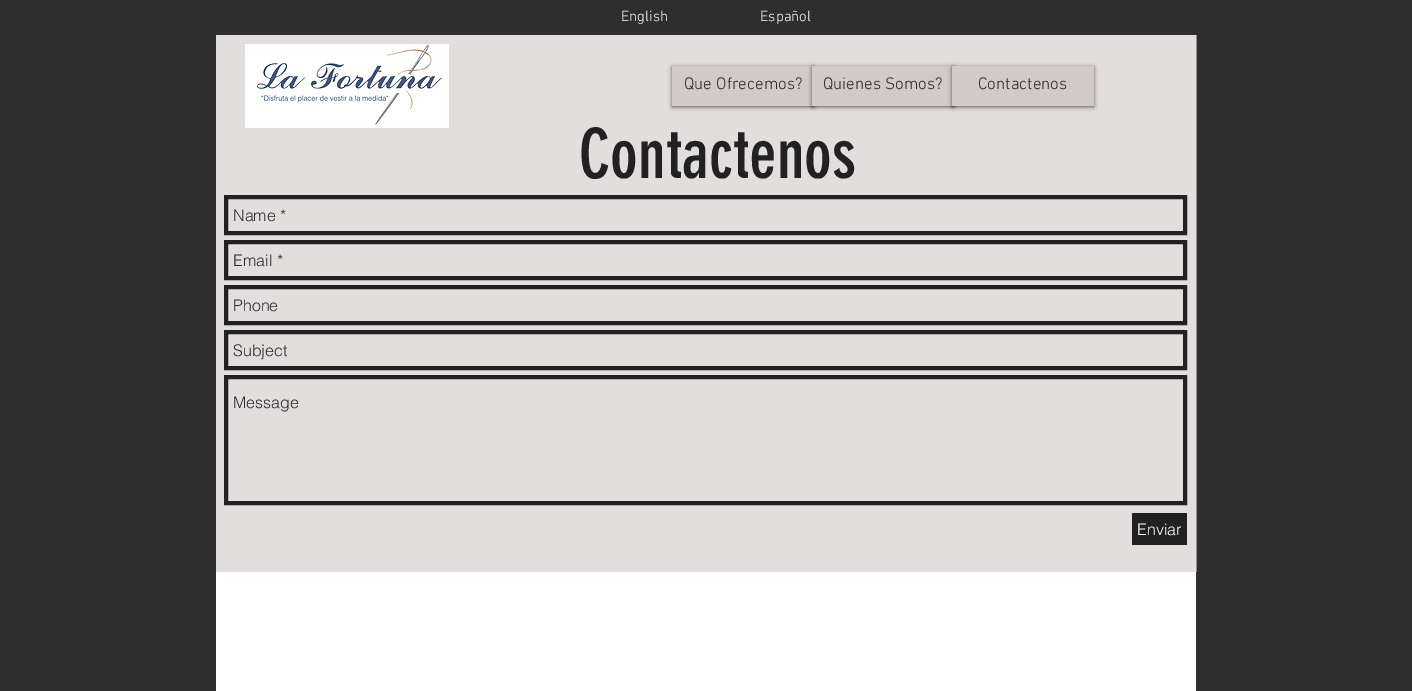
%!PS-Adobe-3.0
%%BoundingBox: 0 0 1412 691
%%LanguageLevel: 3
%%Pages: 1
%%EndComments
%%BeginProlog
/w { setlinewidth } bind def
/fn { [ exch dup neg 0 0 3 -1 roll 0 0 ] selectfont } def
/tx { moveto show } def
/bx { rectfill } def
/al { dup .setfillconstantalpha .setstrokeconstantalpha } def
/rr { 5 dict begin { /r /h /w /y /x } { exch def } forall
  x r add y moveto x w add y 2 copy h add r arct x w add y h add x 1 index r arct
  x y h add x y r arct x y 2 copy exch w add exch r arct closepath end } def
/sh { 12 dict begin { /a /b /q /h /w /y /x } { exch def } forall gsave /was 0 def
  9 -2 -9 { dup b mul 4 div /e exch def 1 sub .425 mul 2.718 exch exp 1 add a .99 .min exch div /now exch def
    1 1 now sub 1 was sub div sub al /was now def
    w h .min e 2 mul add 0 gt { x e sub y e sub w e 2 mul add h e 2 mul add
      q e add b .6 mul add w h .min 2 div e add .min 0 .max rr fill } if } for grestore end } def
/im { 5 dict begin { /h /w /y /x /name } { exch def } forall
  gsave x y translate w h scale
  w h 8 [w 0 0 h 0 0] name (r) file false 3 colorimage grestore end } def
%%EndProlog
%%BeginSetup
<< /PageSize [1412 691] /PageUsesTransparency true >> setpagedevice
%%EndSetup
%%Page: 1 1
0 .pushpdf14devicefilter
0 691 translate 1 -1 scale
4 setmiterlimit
0.184 0.18 0.18 setrgbcolor
0 0 1412 691 bx
/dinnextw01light-Light 15 fn
1 setgray
(English) 621 21 tx
(Español) 760 21 tx
216 572 980 119 bx
0.886 0.871 0.867 setrgbcolor
216 35 980 537 bx
(image0.raw) 245 44 204 84 im
0 setgray
672 67 142 40 0 2 0.6 sh
0.82 0.792 0.788 setrgbcolor
672 66 140 40 bx
/dinnextw01light-Light 17 fn
0.165 setgray
(Que Ofrecemos?) 684 89 tx
0 setgray
812 67 142 40 0 2 0.6 sh
0.82 0.792 0.788 setrgbcolor
812 66 140 40 bx
0.165 setgray
(Quienes Somos?) 823 89 tx
0 setgray
952 67 142 40 0 2 0.6 sh
0.82 0.792 0.788 setrgbcolor
952 66 142 40 bx
0.165 setgray
(Contactenos) 978 89 tx
/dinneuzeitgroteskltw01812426-Regular 68 fn
0.129 setgray
(Contactenos) 579 178 tx
4 w
226 197 959 36 rectstroke
/helvetica-Light 16 fn
0.165 setgray
(Name *) 233 221 tx
0.129 setgray
226 242 959 36 rectstroke
0.165 setgray
(Email *) 233 266 tx
0.129 setgray
226 287 959 36 rectstroke
0.165 setgray
(Phone) 233 311 tx
0.129 setgray
226 332 959 36 rectstroke
0.165 setgray
(Subject) 233 356 tx
0.129 setgray
226 377 959 126 rectstroke
0.165 setgray
(Message) 233 408 tx
0.129 setgray
1132 513 55 32 bx
1 setgray
(Enviar) 1137 535 tx
0.584 0.565 0.565 setrgbcolor
1196 35 1 537 bx
.poppdf14devicefilter showpage
%%EOF
